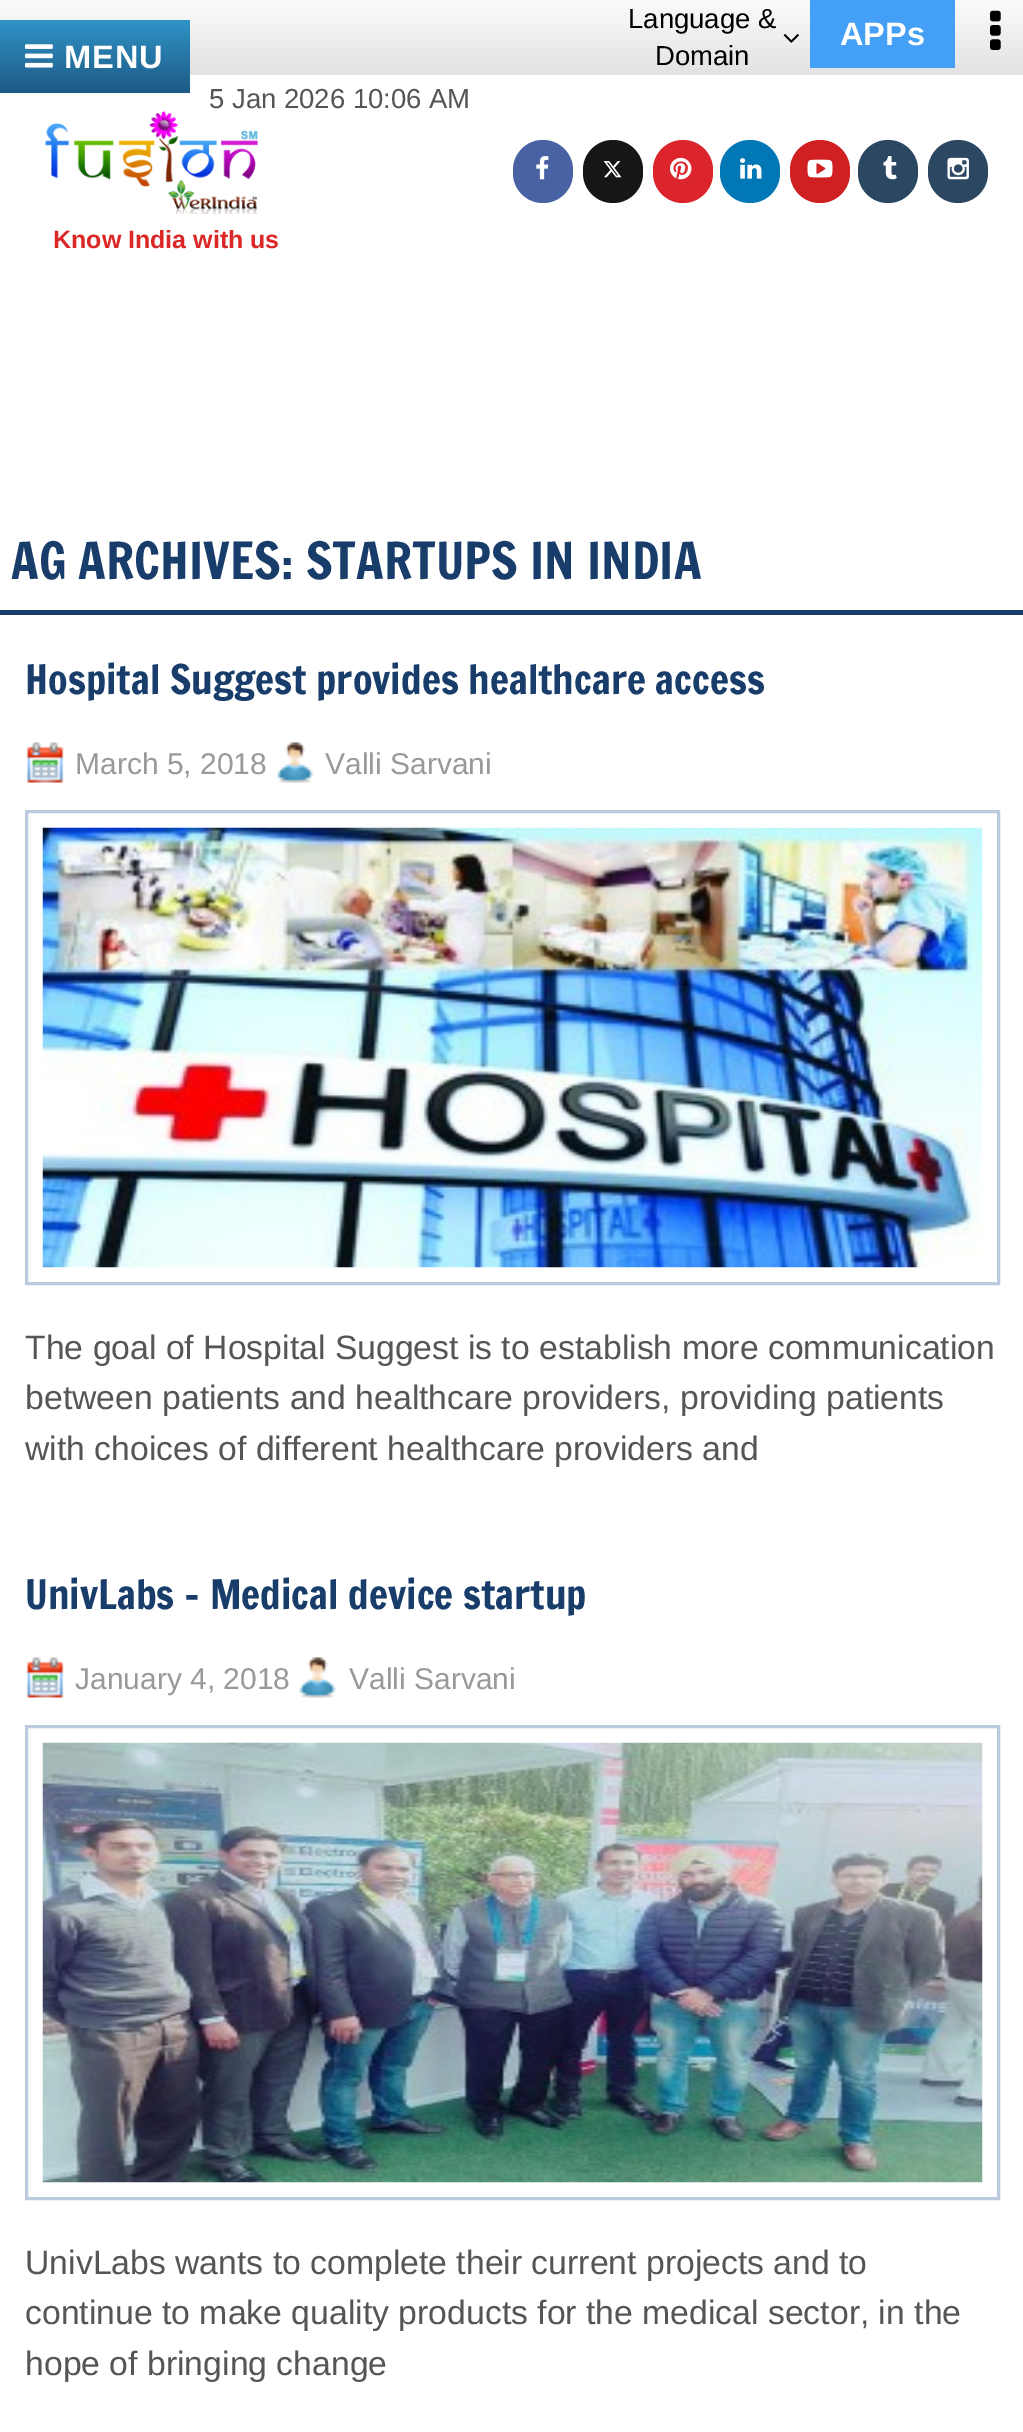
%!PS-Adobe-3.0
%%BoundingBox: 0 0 1023 2432
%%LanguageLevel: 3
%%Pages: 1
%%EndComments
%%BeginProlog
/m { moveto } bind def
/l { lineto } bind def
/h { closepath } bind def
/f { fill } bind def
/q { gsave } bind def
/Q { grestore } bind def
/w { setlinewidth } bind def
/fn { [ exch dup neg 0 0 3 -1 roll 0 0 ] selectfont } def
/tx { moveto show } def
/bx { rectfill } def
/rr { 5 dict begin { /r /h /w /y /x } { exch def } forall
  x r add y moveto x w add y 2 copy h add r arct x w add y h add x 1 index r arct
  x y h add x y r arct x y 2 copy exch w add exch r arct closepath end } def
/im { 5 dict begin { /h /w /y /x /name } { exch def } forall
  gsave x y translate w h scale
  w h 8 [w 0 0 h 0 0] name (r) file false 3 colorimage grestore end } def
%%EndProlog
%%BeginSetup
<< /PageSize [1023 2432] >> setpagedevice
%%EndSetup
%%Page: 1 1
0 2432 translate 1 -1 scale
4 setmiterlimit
1 setgray
0 0 1023 2432 bx
q 0 0 m 1023 0 l 1023 75 l 0 75 l h clip newpath
<< /ShadingType 2 /ColorSpace /DeviceRGB /Coords [513 0 513 75] /Extend [true true] /Function << /FunctionType 2 /Domain [0 1] /C0 [0.984 0.984 0.984] /C1 [0.886 0.886 0.886] /N 1 >> >> shfill Q
/LiberationSans-Regular 27.5 fn
0 setgray
(Language &) 628 28 tx
(image0.raw) 783 34 16 9 im
(Domain) 655 65 tx
0.267 0.624 0.965 setrgbcolor
810 0 145 68 bx
/LiberationSans-Bold 32.5 fn
1 setgray
(APPs) 840 45 tx
(image1.raw) 990 10 11 40 im
q 0 20 m 190 20 l 190 93 l 0 93 l h clip newpath
<< /ShadingType 2 /ColorSpace /DeviceRGB /Coords [95 20 95 93] /Extend [true true] /Function << /FunctionType 2 /Domain [0 1] /C0 [0.188 0.576 0.78] /C1 [0.11 0.353 0.522] /N 1 >> >> shfill Q
(image2.raw) 25 44 28 24 im
64 68 m 1 0 (MENU) ashow
/LiberationSans-Regular 27.5 fn
0.333 setgray
(5 Jan 2026 10:06 AM) 209 108 tx
(image3.raw) 45 111 213 103 im
/LiberationSans-Bold 25 fn
0.859 0.153 0.149 setrgbcolor
(Know India with us) 53 248 tx
0.282 0.384 0.639 setrgbcolor
513 140 60 63 30 rr f
(image4.raw) 536 156 13 24 im
0.082 0.086 0.086 setrgbcolor
583 140 60 63 30 rr f
(image5.raw) 603 161 19 17 im
0.859 0.141 0.173 setrgbcolor
653 140 60 63 30 rr f
(image6.raw) 670 157 22 23 im
0.004 0.467 0.71 setrgbcolor
720 140 60 63 30 rr f
(image7.raw) 740 158 22 21 im
0.816 0.125 0.133 setrgbcolor
790 140 60 63 30 rr f
(image8.raw) 807 159 26 19 im
0.173 0.278 0.384 setrgbcolor
858 140 60 63 30 rr f
(image9.raw) 883 156 14 24 im
928 140 60 63 30 rr f
(image10.raw) 947 157 22 23 im
0.094 0.239 0.42 setrgbcolor
0 610 1023 5 bx
/FrancoisOne-Regular 50 fn
(AG ARCHIVES: STARTUPS IN INDIA) 11 579 tx
/FrancoisOne-Regular 40 fn
(Hospital Suggest provides healthcare access) 25 694 tx
(image11.raw) 26 742 38 41 im
/LiberationSans-Regular 30 fn
0.6 setgray
(March 5, 2018) 75 774 tx
(image12.raw) 276 742 38 41 im
(Valli Sarvani) 325 774 tx
0.733 0.792 0.875 setrgbcolor
3 w
26.5 811.5 972 472 rectstroke
(image13.raw) 42 827 941 441 im
/LiberationSans-Regular 33.75 fn
0.333 setgray
(The goal of Hospital Suggest is to establish more communication) 25 1359 tx
(between patients and healthcare providers, providing patients) 25 1409 tx
(with choices of different healthcare providers and) 25 1460 tx
/FrancoisOne-Regular 40 fn
0.094 0.239 0.42 setrgbcolor
(UnivLabs – Medical device startup) 25 1609 tx
(image11.raw) 26 1657 38 41 im
/LiberationSans-Regular 30 fn
0.6 setgray
(January 4, 2018) 75 1689 tx
(image14.raw) 299 1657 37 41 im
(Valli Sarvani) 349 1689 tx
0.733 0.792 0.875 setrgbcolor
26.5 1726.5 972 472 rectstroke
(image15.raw) 42 1742 941 441 im
/LiberationSans-Regular 33.75 fn
0.333 setgray
(UnivLabs wants to complete their current projects and to) 25 2274 tx
(continue to make quality products for the medical sector, in the) 25 2324 tx
(hope of bringing change) 25 2375 tx
showpage
%%EOF
